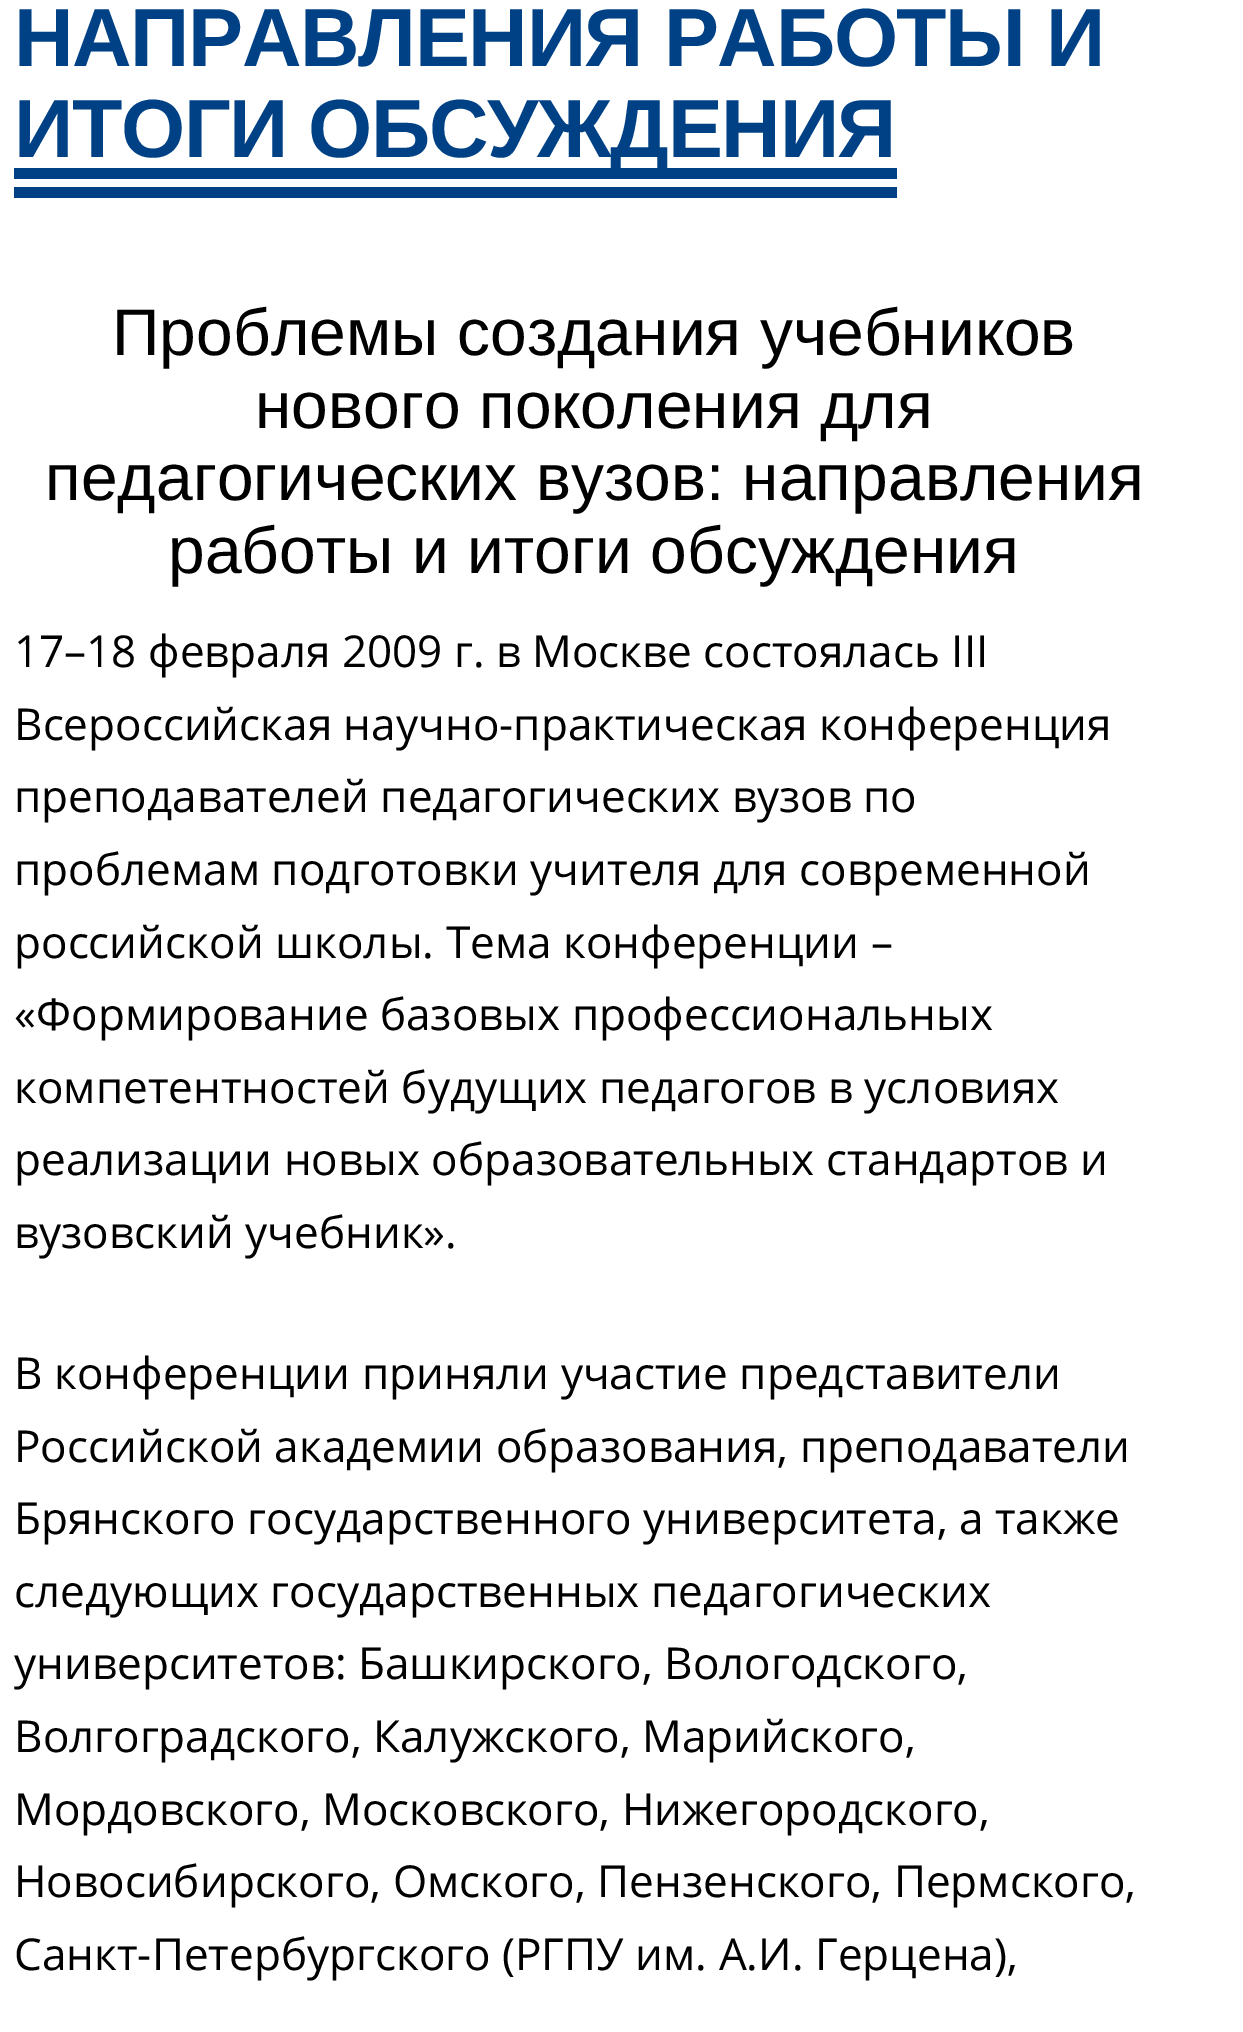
%!PS-Adobe-3.0
%%BoundingBox: 0 0 1243 2032
%%LanguageLevel: 3
%%Pages: 1
%%EndComments
%%BeginProlog
/m { moveto } bind def
/fn { [ exch dup neg 0 0 3 -1 roll 0 0 ] selectfont } def
/tx { moveto show } def
/bx { rectfill } def
%%EndProlog
%%BeginSetup
<< /PageSize [1243 2032] >> setpagedevice
%%EndSetup
%%Page: 1 1
0 2032 translate 1 -1 scale
4 setmiterlimit
1 setgray
0 0 1243 2032 bx
/LiberationSans-Bold 82.5 fn
0 0.255 0.522 setrgbcolor
14 66 m -1.4 0 (НАПРАВЛЕНИЯ РАБОТЫ И) ashow
14 157 m -1.4 0 (ИТОГИ ОБСУЖДЕНИЯ) ashow
14 168 883 11 bx
14 187 883 11 bx
/LiberationSans-Regular 66 fn
0 setgray
(Проблемы создания учебников) 112 355 tx
(нового поколения для) 255 428 tx
(педагогических вузов: направления) 45 500 tx
(работы и итоги обсуждения) 168 573 tx
/OpenSans-Regular 44 fn
(17–18 февраля 2009 г. в Москве состоялась III) 14 667 tx
(Всероссийская научно-практическая конференция) 14 740 tx
(преподавателей педагогических вузов по) 14 812 tx
(проблемам подготовки учителя для современной) 14 885 tx
(российской школы. Тема конференции –) 14 958 tx
(«Формирование базовых профессиональных) 14 1030 tx
(компетентностей будущих педагогов в условиях) 14 1103 tx
(реализации новых образовательных стандартов и) 14 1175 tx
(вузовский учебник».) 14 1248 tx
(В конференции приняли участие представители) 14 1389 tx
(Российской академии образования, преподаватели) 14 1462 tx
(Брянского государственного университета, а также) 14 1534 tx
(следующих государственных педагогических) 14 1607 tx
(университетов: Башкирского, Вологодского,) 14 1679 tx
(Волгоградского, Калужского, Марийского,) 14 1752 tx
(Мордовского, Московского, Нижегородского,) 14 1825 tx
(Новосибирского, Омского, Пензенского, Пермского,) 14 1897 tx
(Санкт-Петербургского \(РГПУ им. А.И. Герцена\),) 14 1970 tx
showpage
%%EOF
